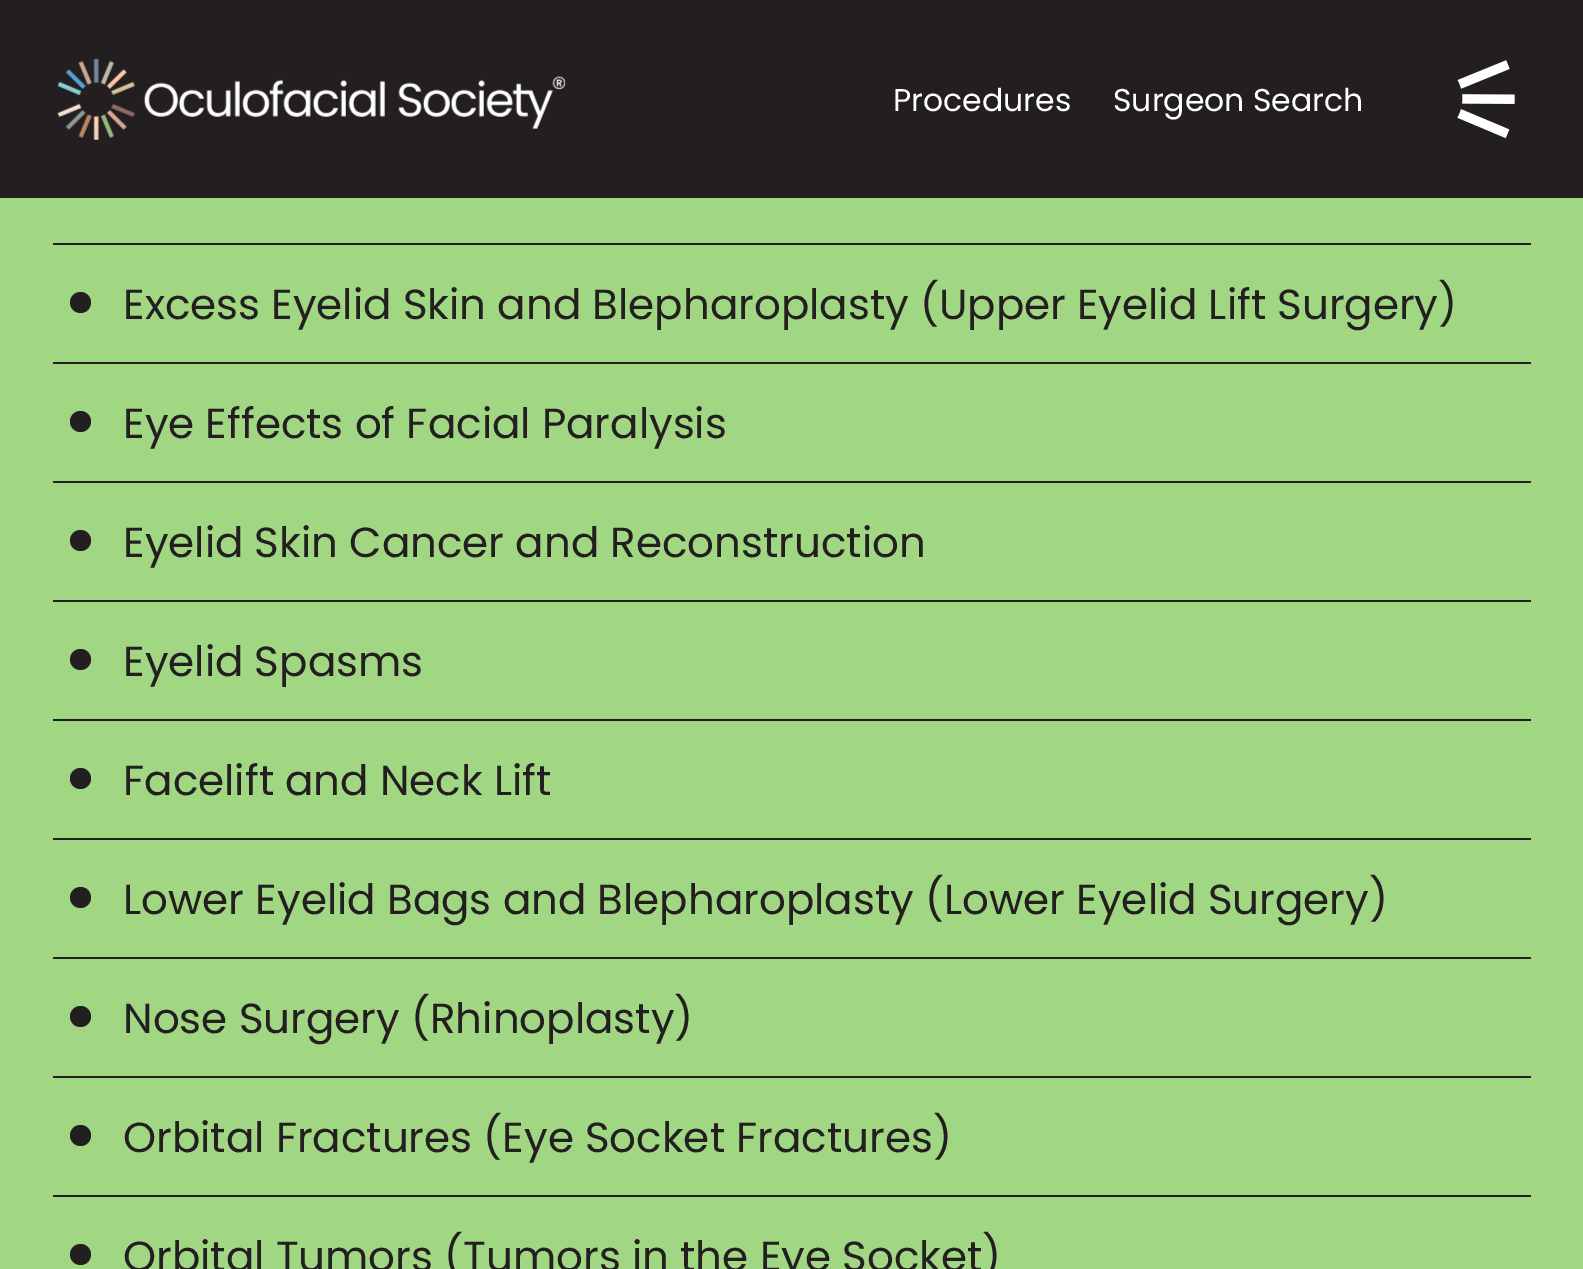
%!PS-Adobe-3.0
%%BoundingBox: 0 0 1583 1269
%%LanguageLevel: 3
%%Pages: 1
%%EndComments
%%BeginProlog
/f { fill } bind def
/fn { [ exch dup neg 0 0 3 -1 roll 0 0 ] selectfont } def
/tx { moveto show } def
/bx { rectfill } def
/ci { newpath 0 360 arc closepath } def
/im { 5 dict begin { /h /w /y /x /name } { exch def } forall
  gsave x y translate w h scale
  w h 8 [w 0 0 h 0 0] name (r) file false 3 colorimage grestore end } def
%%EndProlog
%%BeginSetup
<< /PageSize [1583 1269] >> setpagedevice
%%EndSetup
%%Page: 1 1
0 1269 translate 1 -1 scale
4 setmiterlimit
0.631 0.839 0.514 setrgbcolor
0 0 1583 1269 bx
0.137 0.122 0.125 setrgbcolor
0 0 1583 198 bx
(image0.raw) 57 58 509 82 im
/Poppins-Regular 31.5 fn
1 setgray
(Procedures) 893 111 tx
(Surgeon Search) 1113 111 tx
(image1.raw) 1457 60 58 78 im
0.137 0.122 0.125 setrgbcolor
53 243 1478 2 bx
80.5 302.5 10.5 ci f
/Poppins-Regular 42 fn
(Excess Eyelid Skin and Blepharoplasty \(Upper Eyelid Lift Surgery\)) 123 319 tx
53 362 1478 2 bx
80.5 421.5 10.5 ci f
(Eye Effects of Facial Paralysis) 123 438 tx
53 481 1478 2 bx
80.5 540.5 10.5 ci f
(Eyelid Skin Cancer and Reconstruction) 123 557 tx
53 600 1478 2 bx
80.5 659.5 10.5 ci f
(Eyelid Spasms) 123 676 tx
53 719 1478 2 bx
80.5 778.5 10.5 ci f
(Facelift and Neck Lift) 123 795 tx
53 838 1478 2 bx
80.5 897.5 10.5 ci f
(Lower Eyelid Bags and Blepharoplasty \(Lower Eyelid Surgery\)) 123 914 tx
53 957 1478 2 bx
80.5 1016.5 10.5 ci f
(Nose Surgery \(Rhinoplasty\)) 123 1033 tx
53 1076 1478 2 bx
80.5 1135.5 10.5 ci f
(Orbital Fractures \(Eye Socket Fractures\)) 123 1152 tx
53 1195 1478 2 bx
80.5 1254.5 10.5 ci f
(Orbital Tumors \(Tumors in the Eye Socket\)) 123 1271 tx
showpage
%%EOF
